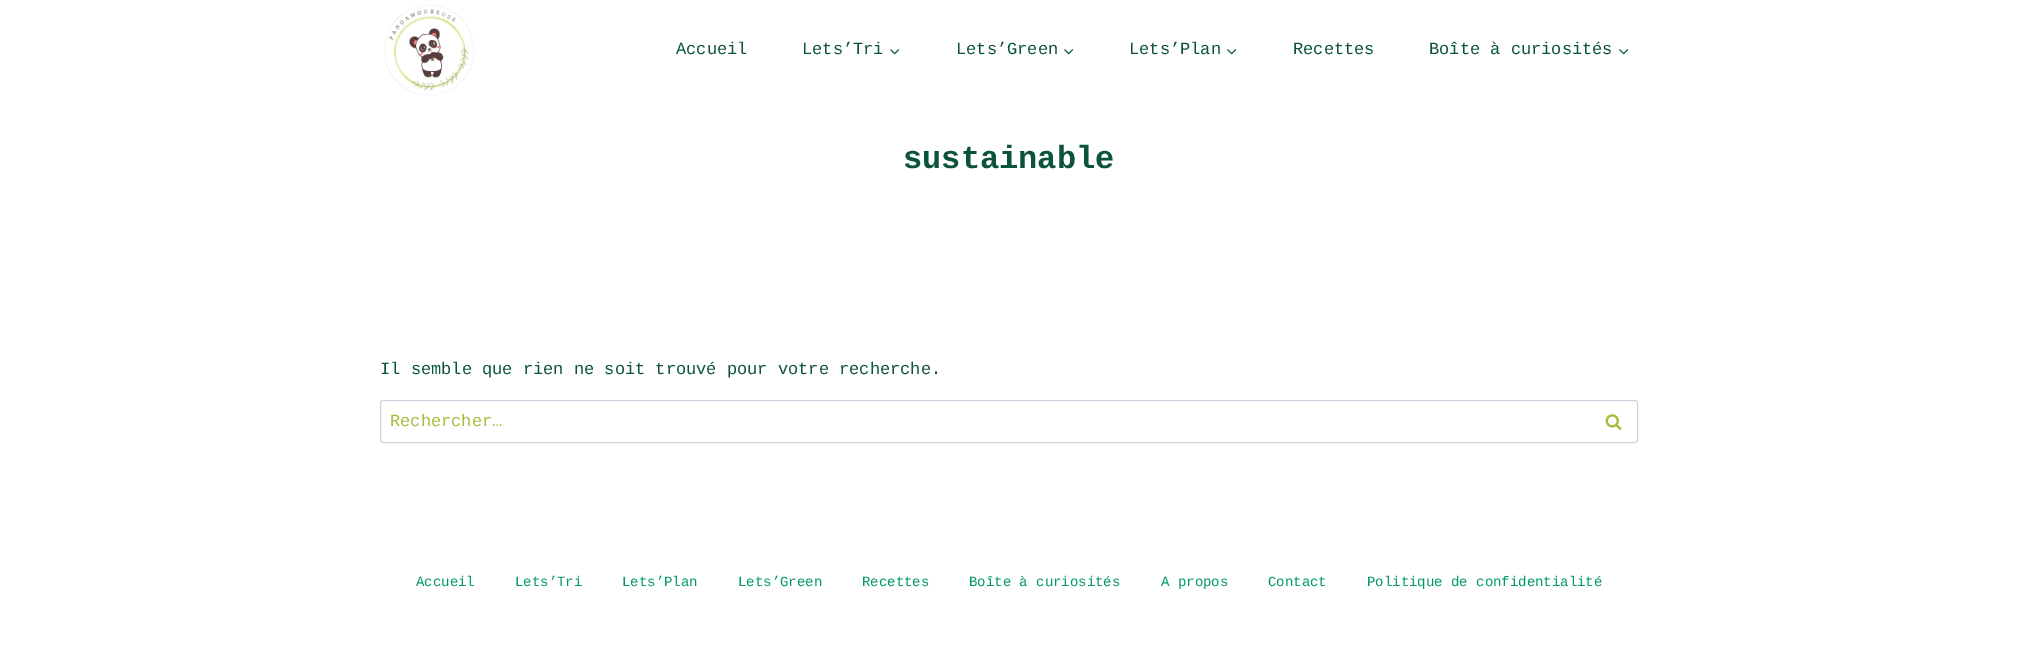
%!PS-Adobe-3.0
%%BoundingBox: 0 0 2018 671
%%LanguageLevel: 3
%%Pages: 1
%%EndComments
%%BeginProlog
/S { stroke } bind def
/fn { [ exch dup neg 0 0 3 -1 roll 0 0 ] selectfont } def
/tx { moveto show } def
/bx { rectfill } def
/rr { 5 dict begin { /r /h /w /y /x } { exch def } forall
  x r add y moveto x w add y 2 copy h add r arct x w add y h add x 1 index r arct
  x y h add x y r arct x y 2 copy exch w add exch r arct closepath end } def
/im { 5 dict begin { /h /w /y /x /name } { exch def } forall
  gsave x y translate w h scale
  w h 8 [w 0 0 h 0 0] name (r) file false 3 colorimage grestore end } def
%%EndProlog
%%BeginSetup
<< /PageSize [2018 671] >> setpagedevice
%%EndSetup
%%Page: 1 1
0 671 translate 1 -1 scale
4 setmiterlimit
1 setgray
0 0 2018 671 bx
(image0.raw) 384 4 91 92 im
/LiberationMono-Regular 17 fn
0.047 0.325 0.243 setrgbcolor
(Accueil) 676 54 tx
(Lets’Tri) 802 54 tx
(image1.raw) 890 49 10 6 im
(Lets’Green) 956 54 tx
(image1.raw) 1064 49 10 6 im
(Lets’Plan) 1129 54 tx
(image1.raw) 1227 49 10 6 im
(Recettes) 1293 54 tx
(Boîte à curiosités) 1429 54 tx
(image1.raw) 1619 49 10 6 im
/LiberationMono-Bold 32 fn
(sustainable) 903 168 tx
/LiberationMono-Regular 17 fn
(Il semble que rien ne soit trouvé pour votre recherche.) 380 374 tx
0.796 0.835 0.878 setrgbcolor
380.5 400.5 1257 42 2.5 rr S
0.635 0.749 0.231 setrgbcolor
(Rechercher…) 390 426 tx
(image2.raw) 1605 414 17 16 im
/LiberationMono-Regular 14 fn
0.008 0.6 0.392 setrgbcolor
(Accueil) 416 586 tx
(Lets’Tri) 515 586 tx
(Lets’Plan) 622 586 tx
(Lets’Green) 738 586 tx
(Recettes) 862 586 tx
(Boîte à curiosités) 969 586 tx
(A propos) 1161 586 tx
(Contact) 1268 586 tx
(Politique de confidentialité) 1367 586 tx
showpage
%%EOF
